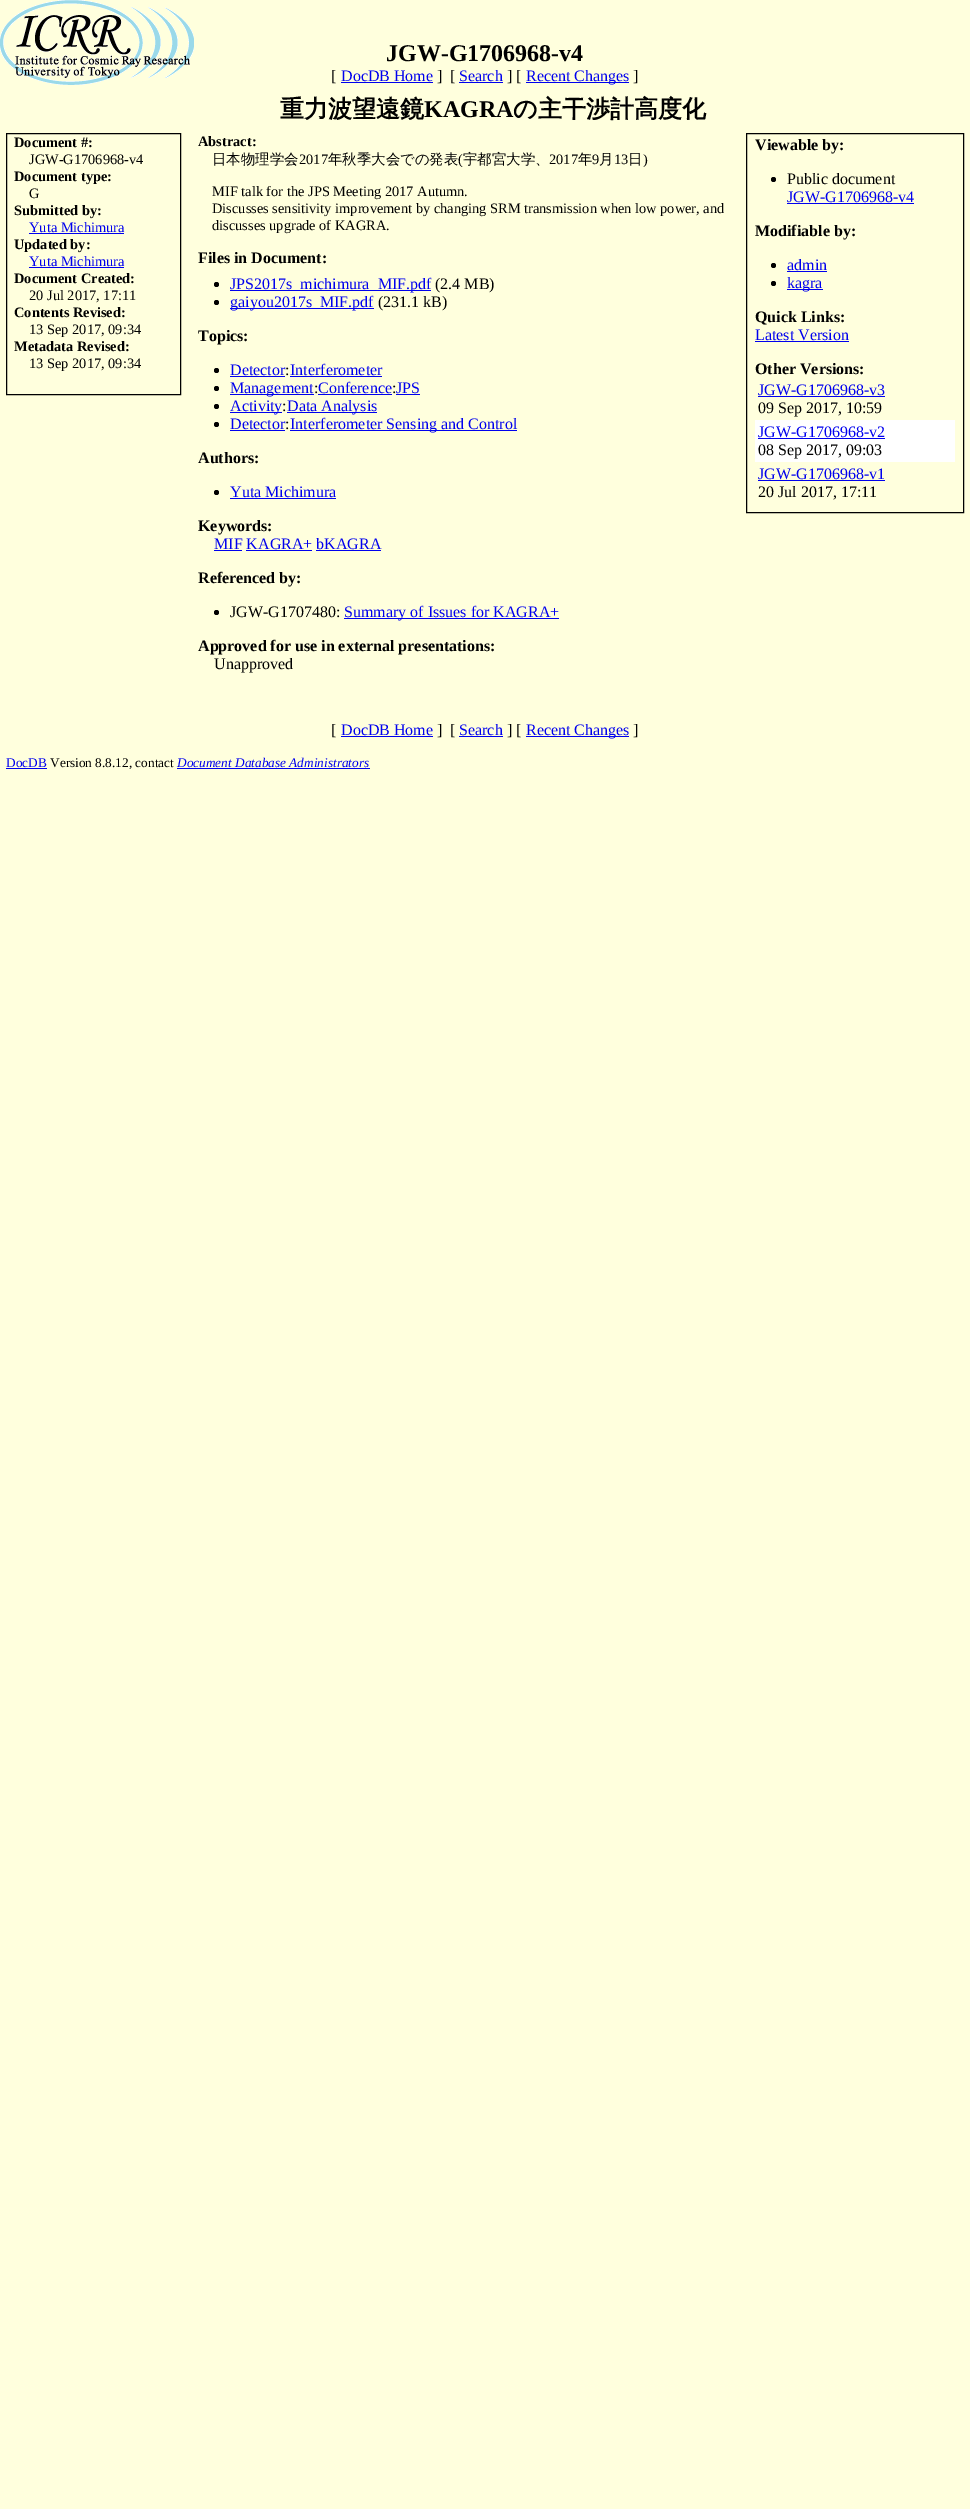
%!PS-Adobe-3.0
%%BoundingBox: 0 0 970 2509
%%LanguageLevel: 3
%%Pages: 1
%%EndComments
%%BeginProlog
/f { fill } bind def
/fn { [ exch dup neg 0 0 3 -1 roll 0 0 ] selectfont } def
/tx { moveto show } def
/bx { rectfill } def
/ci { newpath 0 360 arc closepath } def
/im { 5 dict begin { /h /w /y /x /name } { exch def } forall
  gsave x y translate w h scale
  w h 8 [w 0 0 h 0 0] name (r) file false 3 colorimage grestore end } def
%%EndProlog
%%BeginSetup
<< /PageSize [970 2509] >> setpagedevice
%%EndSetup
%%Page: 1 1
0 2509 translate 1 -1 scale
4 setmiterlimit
1 1 0.867 setrgbcolor
0 0 970 2509 bx
(image0.raw) 0 0 194 85 im
/LiberationSerif-Bold 24 fn
0 setgray
(JGW-G1706968-v4) 386 61 tx
/LiberationSerif-Regular 16 fn
([) 331 81 tx
0 0 0.933 setrgbcolor
(DocDB Home) 341 81 tx
341 82 92 1 bx
0 setgray
(]  [) 437 81 tx
0 0 0.933 setrgbcolor
(Search) 459 81 tx
459 82 44 1 bx
0 setgray
(] [) 507 81 tx
0 0 0.933 setrgbcolor
526 82 103 1 bx
(Recent Changes) 526 81 tx
0 setgray
(]) 633 81 tx
/WenQuanYiZenHei-Bold 24 fn
(重力波望遠鏡) 280 117 tx
/LiberationSerif-Bold 24 fn
(KAGRA) 424 117 tx
/WenQuanYiZenHei-Bold 24 fn
(の主干渉計高度化) 513 117 tx
6.5 133.5 174 261 rectstroke
/LiberationSerif-Bold 14.4 fn
(Document #:) 14 147 tx
/LiberationSerif-Regular 14.4 fn
(JGW-G1706968-v4) 29 164 tx
/LiberationSerif-Bold 14.4 fn
(Document type:) 14 181 tx
/LiberationSerif-Regular 14.4 fn
(G) 29 198 tx
/LiberationSerif-Bold 14.4 fn
(Submitted by:) 14 215 tx
/LiberationSerif-Regular 14.4 fn
0 0 0.933 setrgbcolor
(Yuta Michimura) 29 232 tx
29 233 95 1 bx
/LiberationSerif-Bold 14.4 fn
0 setgray
(Updated by:) 14 249 tx
/LiberationSerif-Regular 14.4 fn
0 0 0.933 setrgbcolor
(Yuta Michimura) 29 266 tx
29 267 95 1 bx
/LiberationSerif-Bold 14.4 fn
0 setgray
(Document Created:) 14 283 tx
/LiberationSerif-Regular 14.4 fn
(20 Jul 2017, 17:11) 29 300 tx
/LiberationSerif-Bold 14.4 fn
(Contents Revised:) 14 317 tx
/LiberationSerif-Regular 14.4 fn
(13 Sep 2017, 09:34) 29 334 tx
/LiberationSerif-Bold 14.4 fn
(Metadata Revised:) 14 351 tx
/LiberationSerif-Regular 14.4 fn
(13 Sep 2017, 09:34) 29 368 tx
/LiberationSerif-Bold 14.4 fn
(Abstract:) 198 146 tx
/WenQuanYiZenHei-Medium 14.4 fn
(日本物理学会) 212 164 tx
/LiberationSerif-Regular 14.4 fn
(2017) 299 164 tx
/WenQuanYiZenHei-Medium 14.4 fn
(年秋季大会での発表) 328 164 tx
/LiberationSerif-Regular 14.4 fn
(\() 458 164 tx
/WenQuanYiZenHei-Medium 14.4 fn
(宇都宮大学、) 463 164 tx
/LiberationSerif-Regular 14.4 fn
(2017) 549 164 tx
/WenQuanYiZenHei-Medium 14.4 fn
(年) 578 164 tx
/LiberationSerif-Regular 14.4 fn
(9) 592 164 tx
/WenQuanYiZenHei-Medium 14.4 fn
(月) 599 164 tx
/LiberationSerif-Regular 14.4 fn
(13) 614 164 tx
/WenQuanYiZenHei-Medium 14.4 fn
(日) 628 164 tx
/LiberationSerif-Regular 14.4 fn
(\)) 643 164 tx
(MIF talk for the JPS Meeting 2017 Autumn.) 212 196 tx
(Discusses sensitivity improvement by changing SRM transmission when low power, and) 212 213 tx
(discusses upgrade of KAGRA.) 212 230 tx
746.5 133.5 217 379 rectstroke
/LiberationSerif-Bold 16 fn
(Viewable by:) 755 150 tx
773.5 179.5 2.5 ci f
/LiberationSerif-Regular 16 fn
(Public document) 787 184 tx
0 0 0.933 setrgbcolor
(JGW-G1706968-v4) 787 202 tx
787 203 127 1 bx
/LiberationSerif-Bold 16 fn
0 setgray
(Modifiable by:) 755 236 tx
773.5 265.5 2.5 ci f
/LiberationSerif-Regular 16 fn
0 0 0.933 setrgbcolor
(admin) 787 270 tx
787 271 40 1 bx
0 setgray
773.5 283.5 2.5 ci f
0 0 0.933 setrgbcolor
787 289 36 1 bx
(kagra) 787 288 tx
/LiberationSerif-Bold 16 fn
0 setgray
(Quick Links:) 755 322 tx
/LiberationSerif-Regular 16 fn
0 0 0.933 setrgbcolor
(Latest Version) 755 340 tx
755 341 94 1 bx
/LiberationSerif-Bold 16 fn
0 setgray
(Other Versions:) 755 374 tx
/LiberationSerif-Regular 16 fn
0 0 0.933 setrgbcolor
(JGW-G1706968-v3) 758 395 tx
758 396 127 1 bx
0 setgray
(09 Sep 2017, 10:59) 758 413 tx
1 setgray
755 420 200 42 bx
0 0 0.933 setrgbcolor
(JGW-G1706968-v2) 758 437 tx
758 438 127 1 bx
0 setgray
(08 Sep 2017, 09:03) 758 455 tx
0 0 0.933 setrgbcolor
(JGW-G1706968-v1) 758 479 tx
758 480 127 1 bx
0 setgray
(20 Jul 2017, 17:11) 758 497 tx
/LiberationSerif-Bold 16 fn
(Files in Document:) 198 263 tx
216.5 284.5 2.5 ci f
0 0 0.933 setrgbcolor
230 290 201 1 bx
/LiberationSerif-Regular 16 fn
(JPS2017s_michimura_MIF.pdf) 230 289 tx
0 setgray
(\(2.4 MB\)) 435 289 tx
216.5 302.5 2.5 ci f
0 0 0.933 setrgbcolor
230 308 144 1 bx
(gaiyou2017s_MIF.pdf) 230 307 tx
0 setgray
(\(231.1 kB\)) 378 307 tx
/LiberationSerif-Bold 16 fn
(Topics:) 198 341 tx
216.5 370.5 2.5 ci f
/LiberationSerif-Regular 16 fn
0 0 0.933 setrgbcolor
(Detector) 230 375 tx
230 376 55 1 bx
0 setgray
(:) 285 375 tx
0 0 0.933 setrgbcolor
(Interferometer) 290 375 tx
290 376 92 1 bx
0 setgray
216.5 388.5 2.5 ci f
0 0 0.933 setrgbcolor
230 394 84 1 bx
(Management) 230 393 tx
0 setgray
(:) 314 393 tx
0 0 0.933 setrgbcolor
(Conference) 318 393 tx
318 394 74 1 bx
0 setgray
(:) 392 393 tx
0 0 0.933 setrgbcolor
(JPS) 396 393 tx
396 394 24 1 bx
0 setgray
216.5 406.5 2.5 ci f
0 0 0.933 setrgbcolor
230 412 52 1 bx
(Activity) 230 411 tx
0 setgray
(:) 282 411 tx
0 0 0.933 setrgbcolor
287 412 90 1 bx
(Data Analysis) 287 411 tx
0 setgray
216.5 424.5 2.5 ci f
0 0 0.933 setrgbcolor
(Detector) 230 429 tx
230 430 55 1 bx
0 setgray
(:) 285 429 tx
0 0 0.933 setrgbcolor
290 430 227 1 bx
(Interferometer Sensing and Control) 290 429 tx
/LiberationSerif-Bold 16 fn
0 setgray
(Authors:) 198 463 tx
216.5 492.5 2.5 ci f
/LiberationSerif-Regular 16 fn
0 0 0.933 setrgbcolor
(Yuta Michimura) 230 497 tx
230 498 106 1 bx
/LiberationSerif-Bold 16 fn
0 setgray
(Keywords:) 198 531 tx
/LiberationSerif-Regular 16 fn
0 0 0.933 setrgbcolor
(MIF KAGRA+ bKAGRA) 214 549 tx
214 550 28 1 bx
246 550 66 1 bx
316 550 65 1 bx
/LiberationSerif-Bold 16 fn
0 setgray
(Referenced by:) 198 583 tx
216.5 612.5 2.5 ci f
/LiberationSerif-Regular 16 fn
(JGW-G1707480:) 230 617 tx
0 0 0.933 setrgbcolor
344 618 215 1 bx
(Summary of Issues for KAGRA+) 344 617 tx
/LiberationSerif-Bold 16 fn
0 setgray
(Approved for use in external presentations:) 198 651 tx
/LiberationSerif-Regular 16 fn
(Unapproved) 214 669 tx
([) 331 735 tx
0 0 0.933 setrgbcolor
(DocDB Home) 341 735 tx
341 736 92 1 bx
0 setgray
(]  [) 437 735 tx
0 0 0.933 setrgbcolor
(Search) 459 735 tx
459 736 44 1 bx
0 setgray
(] [) 507 735 tx
0 0 0.933 setrgbcolor
526 736 103 1 bx
(Recent Changes) 526 735 tx
0 setgray
(]) 633 735 tx
/LiberationSerif-Regular 13.3 fn
0 0 0.933 setrgbcolor
(DocDB) 6 767 tx
6 768 41 1 bx
0 setgray
(Version 8.8.12, contact) 50 767 tx
0 0 0.933 setrgbcolor
177 768 193 1 bx
/LiberationSerif-Italic 13.3 fn
(Document Database Administrators) 177 767 tx
showpage
%%EOF
